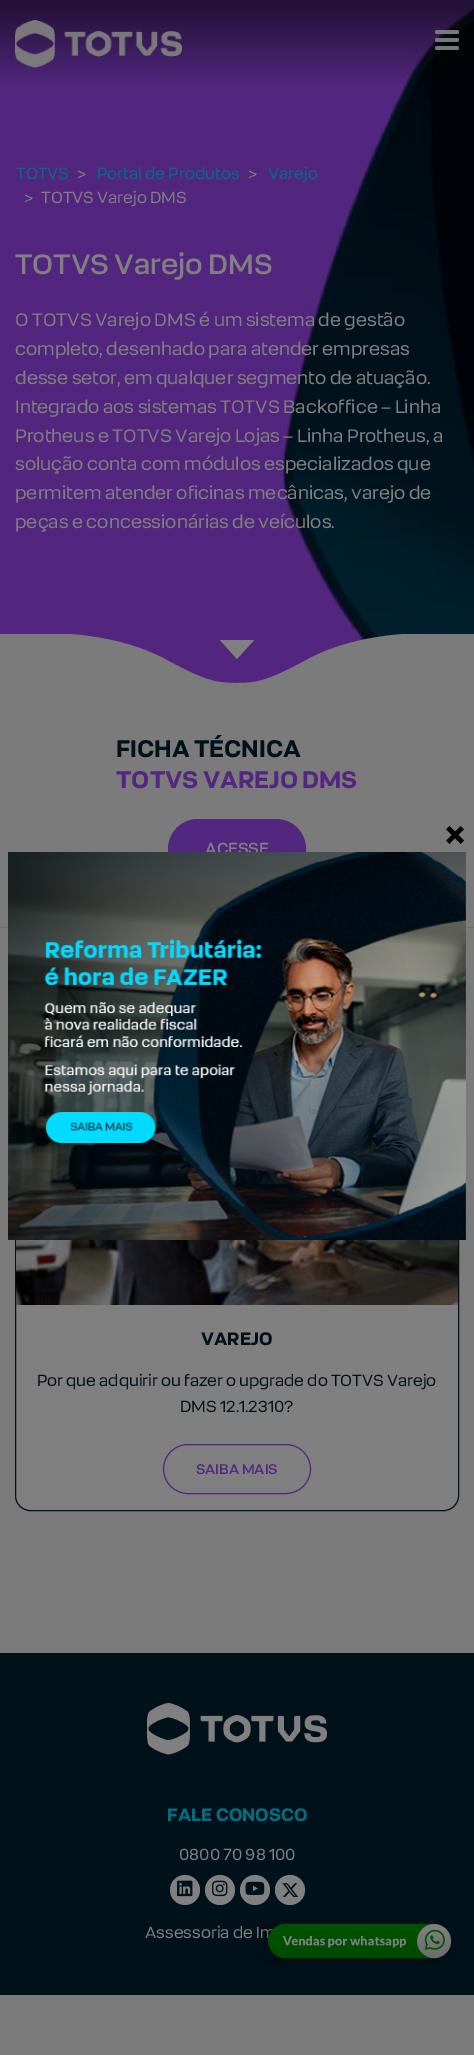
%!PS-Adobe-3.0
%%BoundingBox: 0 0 474 2055
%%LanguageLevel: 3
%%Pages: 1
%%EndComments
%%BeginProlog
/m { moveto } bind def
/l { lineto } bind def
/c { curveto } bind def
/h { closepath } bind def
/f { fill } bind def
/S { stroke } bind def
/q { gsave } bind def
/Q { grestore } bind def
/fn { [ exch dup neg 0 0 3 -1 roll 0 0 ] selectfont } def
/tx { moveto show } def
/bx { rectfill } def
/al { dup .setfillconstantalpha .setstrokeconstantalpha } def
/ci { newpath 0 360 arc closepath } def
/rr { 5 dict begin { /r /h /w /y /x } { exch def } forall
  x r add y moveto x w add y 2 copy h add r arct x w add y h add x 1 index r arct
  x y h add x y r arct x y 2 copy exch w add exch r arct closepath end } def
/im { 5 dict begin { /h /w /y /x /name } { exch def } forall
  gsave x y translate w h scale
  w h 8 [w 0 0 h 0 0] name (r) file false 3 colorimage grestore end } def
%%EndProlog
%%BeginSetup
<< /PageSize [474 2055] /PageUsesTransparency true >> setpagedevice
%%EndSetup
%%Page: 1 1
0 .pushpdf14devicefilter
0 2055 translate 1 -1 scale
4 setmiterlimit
0.482 setgray
0 0 474 2055 bx
(image1.raw) 0 0 474 683 im
(image0.raw) 15 20 167 48 im
0.93 al
0.502 setgray
435 30 24 4 2 rr f
435 38 24 4 2 rr f
435 46 24 4 2 rr f
/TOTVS-Regular 16 fn
1 al
0 0.431 0.502 setrgbcolor
(TOTVS) 16 179 tx
0.502 setgray
(>) 77 179 tx
0 0.431 0.502 setrgbcolor
(Portal de Produtos) 97 179 tx
0.502 setgray
(>) 248 179 tx
0 0.431 0.502 setrgbcolor
(Varejo) 268 179 tx
0.502 setgray
(>) 24 203 tx
(TOTVS Varejo DMS) 41 203 tx
/TOTVS-SemiBold 28 fn
(TOTVS Varejo DMS) 15 274 tx
/TOTVS-Regular 18 fn
(O TOTVS Varejo DMS é um sistema de gestão) 15 326 tx
(completo, desenhado para atender empresas) 15 355 tx
(desse setor, em qualquer segmento de atuação.) 15 384 tx
(Integrado aos sistemas TOTVS Backoffice – Linha) 15 413 tx
(Protheus e TOTVS Varejo Lojas – Linha Protheus, a) 15 442 tx
(solução conta com módulos especializados que) 15 470 tx
(permitem atender oficinas mecânicas, varejo de) 15 499 tx
(peças e concessionárias de veículos.) 15 528 tx
0.482 setgray
0 634 47 49 bx
310 658 m 268 681 257 683 237 683 c 216 683 205 681 163 658 c 121 636 68 634 68 634 c 47 634 l 47 687 l 426 687 l 426 634 l 405 634 l 405 634 352 636 310 658 c h f
0.502 setgray
220 640 m 254 640 l 237 659 l h f
0.482 setgray
426 634 48 49 bx
/TOTVS-Bold 24 fn
0 0.067 0.102 setrgbcolor
(FICHA TÉCNICA) 116 757 tx
0.322 0.153 0.502 setrgbcolor
(TOTVS VAREJO DMS) 116 788 tx
168.5 819.5 137 59 29.5 rr q f Q
S
/TOTVS-SemiBold 16 fn
0.502 setgray
(ACESSE) 205 854 tx
0.435 setgray
0 927 474 1 bx
0.502 setgray
15.5 1055.5 443 455 14.5 rr q f Q
0 0.067 0.102 setrgbcolor
S
(image2.raw) 16 1239 442 66 im
/TOTVS-Bold 18 fn
(VAREJO) 201 1345 tx
/TOTVS-Regular 16 fn
(Por que adquirir ou fazer o upgrade do TOTVS Varejo) 37 1386 tx
(DMS 12.1.2310?) 180 1412 tx
0.322 0.153 0.502 setrgbcolor
163.5 1444.5 147 49 24.5 rr S
/TOTVS-SemiBold 14 fn
(SAIBA MAIS) 196 1474 tx
/TOTVS-Bold 38 fn
0 setgray
(×) 444 846 tx
(image3.raw) 8 852 458 388 im
0 0.067 0.102 setrgbcolor
0 1653 474 342 bx
(image4.raw) 147 1703 180 52 im
/TOTVS-Bold 18 fn
0 0.431 0.502 setrgbcolor
(FALE CONOSCO) 167 1821 tx
/TOTVS-Regular 16 fn
0.502 setgray
(0800 70 98 100) 179 1860 tx
185 1890 15 ci f
(image5.raw) 177 1880 16 17 im
220 1890 15 ci f
(image6.raw) 212 1880 16 17 im
255 1890 15 ci f
(image7.raw) 245 1881 20 14 im
290 1890 15 ci f
(image8.raw) 282 1883 16 14 im
(Assessoria de Im) 145 1938 tx
(image9.raw) 257 1922 195 46 im
.poppdf14devicefilter showpage
%%EOF
